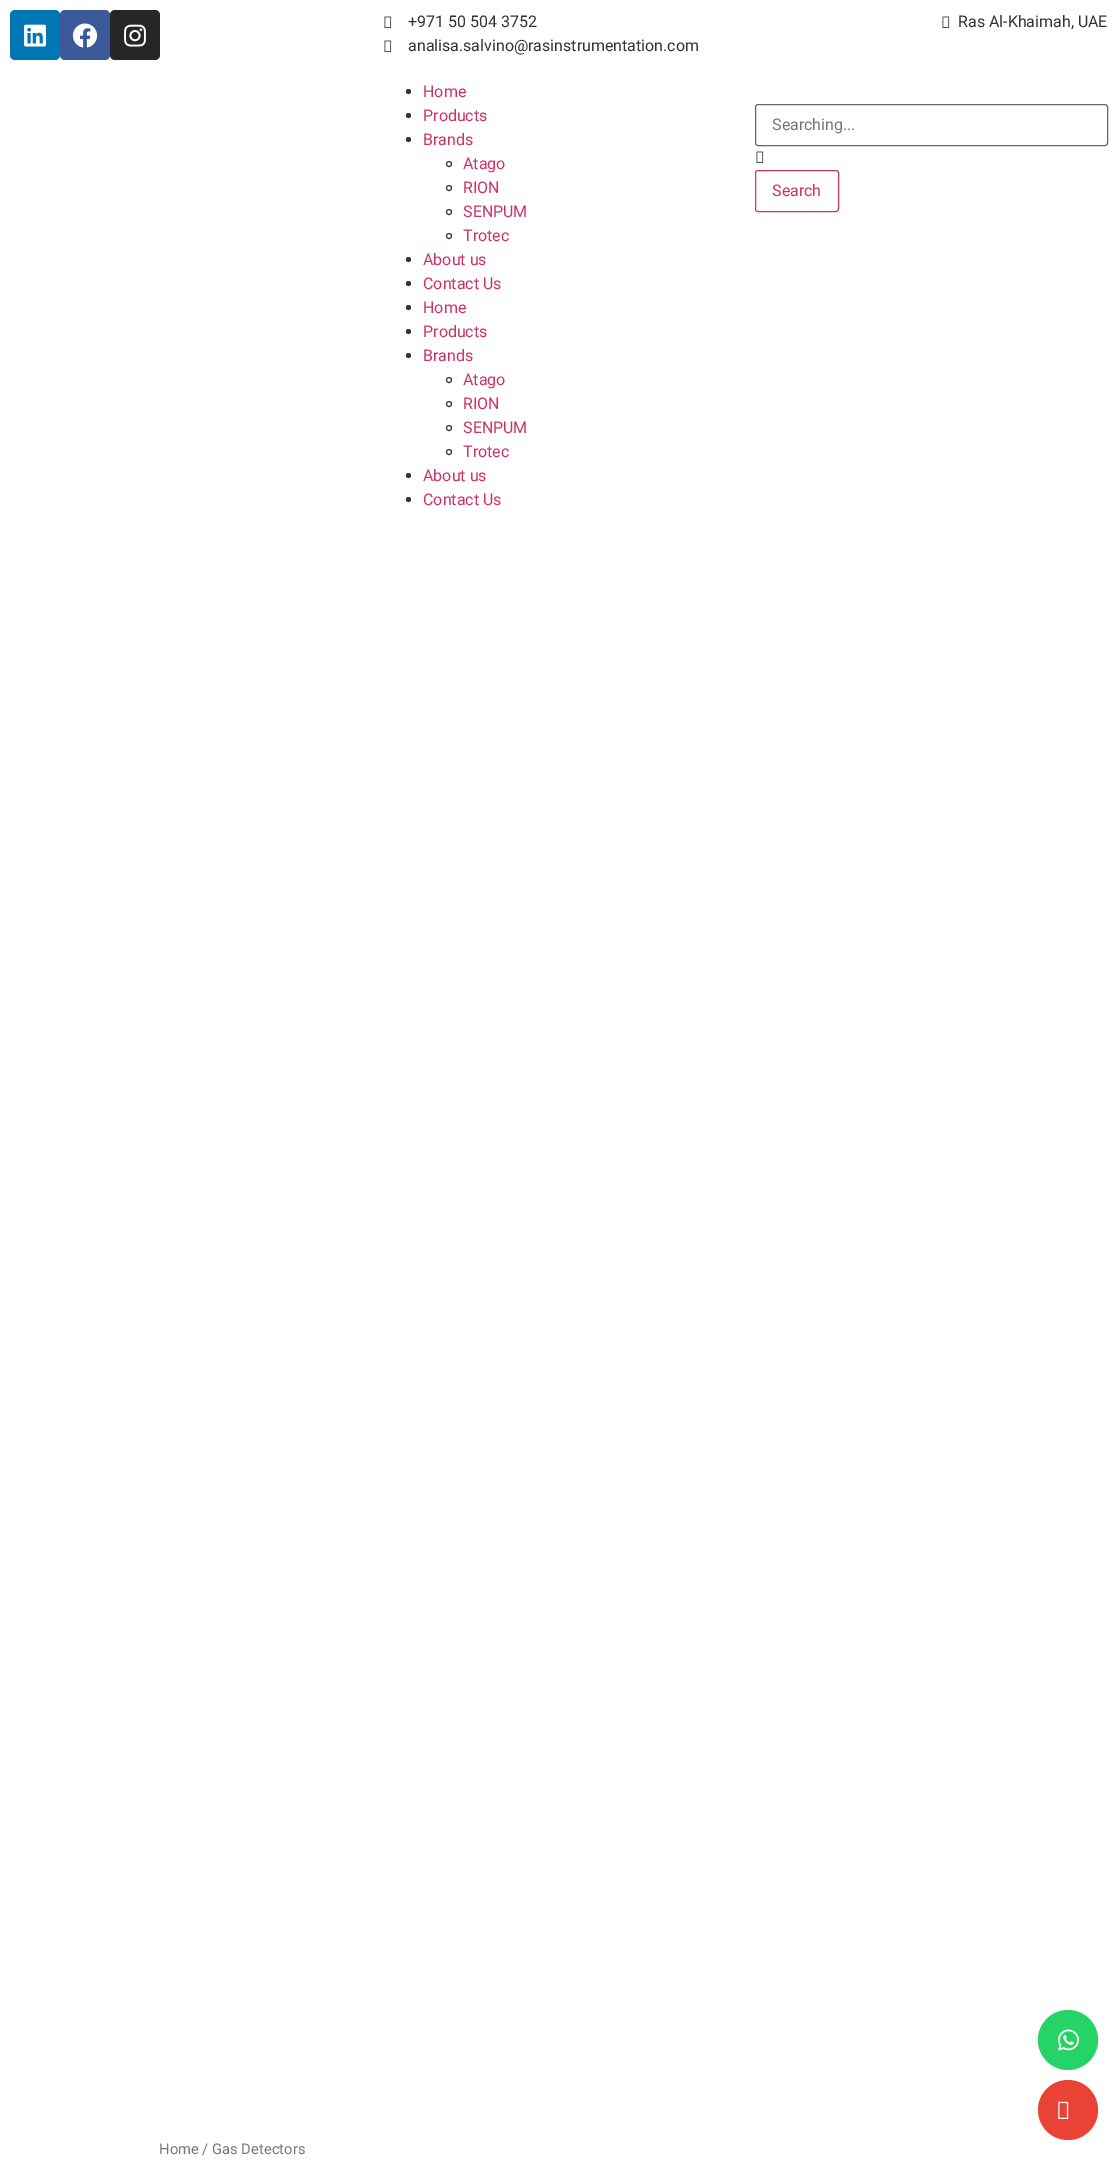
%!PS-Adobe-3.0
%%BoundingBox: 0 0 1118 2160
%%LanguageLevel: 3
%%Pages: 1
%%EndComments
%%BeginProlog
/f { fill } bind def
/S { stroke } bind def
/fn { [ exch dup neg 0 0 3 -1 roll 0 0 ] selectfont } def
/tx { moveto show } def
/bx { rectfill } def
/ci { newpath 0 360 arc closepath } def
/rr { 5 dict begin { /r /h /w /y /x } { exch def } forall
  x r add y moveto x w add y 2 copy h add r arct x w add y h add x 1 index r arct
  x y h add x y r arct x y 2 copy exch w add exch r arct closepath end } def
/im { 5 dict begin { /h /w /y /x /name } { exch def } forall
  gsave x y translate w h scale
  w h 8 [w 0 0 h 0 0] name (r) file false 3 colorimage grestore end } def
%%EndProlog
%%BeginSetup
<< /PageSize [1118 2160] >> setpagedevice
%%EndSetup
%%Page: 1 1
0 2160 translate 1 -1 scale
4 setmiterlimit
1 setgray
0 0 1118 2160 bx
0 0.467 0.71 setrgbcolor
10 10 50 50 5 rr f
(image0.raw) 24 24 22 23 im
0.231 0.349 0.596 setrgbcolor
60 10 50 50 5 rr f
(image1.raw) 72 23 26 25 im
0.149 setgray
110 10 50 50 5 rr f
(image2.raw) 124 24 22 23 im
(image3.raw) 384 16 8 12 im
/Roboto-Regular 16 fn
0.2 setgray
(+971 50 504 3752) 408 27 tx
(image3.raw) 384 40 8 12 im
(analisa.salvino@rasinstrumentation.com) 408 51 tx
(image3.raw) 942 16 8 12 im
(Ras Al-Khaimah, UAE) 958 27 tx
408.5 91.5 2.5 ci f
0.8 0.2 0.4 setrgbcolor
(Home) 423 97 tx
0.2 setgray
408.5 115.5 2.5 ci f
0.8 0.2 0.4 setrgbcolor
(Products) 423 121 tx
0.2 setgray
408.5 139.5 2.5 ci f
0.8 0.2 0.4 setrgbcolor
(Brands) 423 145 tx
0.2 setgray
449 164 2.5 ci S
0.8 0.2 0.4 setrgbcolor
(Atago) 463 169 tx
0.2 setgray
449 188 2.5 ci S
0.8 0.2 0.4 setrgbcolor
(RION) 463 193 tx
0.2 setgray
449 212 2.5 ci S
0.8 0.2 0.4 setrgbcolor
(SENPUM) 463 217 tx
0.2 setgray
449 236 2.5 ci S
0.8 0.2 0.4 setrgbcolor
(Trotec) 463 241 tx
0.2 setgray
408.5 259.5 2.5 ci f
0.8 0.2 0.4 setrgbcolor
(About us) 423 265 tx
0.2 setgray
408.5 283.5 2.5 ci f
0.8 0.2 0.4 setrgbcolor
(Contact Us) 423 289 tx
0.2 setgray
408.5 307.5 2.5 ci f
0.8 0.2 0.4 setrgbcolor
(Home) 423 313 tx
0.2 setgray
408.5 331.5 2.5 ci f
0.8 0.2 0.4 setrgbcolor
(Products) 423 337 tx
0.2 setgray
408.5 355.5 2.5 ci f
0.8 0.2 0.4 setrgbcolor
(Brands) 423 361 tx
0.2 setgray
449 380 2.5 ci S
0.8 0.2 0.4 setrgbcolor
(Atago) 463 385 tx
0.2 setgray
449 404 2.5 ci S
0.8 0.2 0.4 setrgbcolor
(RION) 463 409 tx
0.2 setgray
449 428 2.5 ci S
0.8 0.2 0.4 setrgbcolor
(SENPUM) 463 433 tx
0.2 setgray
449 452 2.5 ci S
0.8 0.2 0.4 setrgbcolor
(Trotec) 463 457 tx
0.2 setgray
408.5 475.5 2.5 ci f
0.8 0.2 0.4 setrgbcolor
(About us) 423 481 tx
0.2 setgray
408.5 499.5 2.5 ci f
0.8 0.2 0.4 setrgbcolor
(Contact Us) 423 505 tx
0.4 setgray
755.5 104.5 352 41 2.5 rr S
0.463 setgray
(Searching...) 772 130 tx
(image3.raw) 756 151 8 12 im
0.8 0.2 0.4 setrgbcolor
755.5 170.5 83 41 2.5 rr S
(Search) 772 196 tx
0.145 0.827 0.4 setrgbcolor
1068 2040 30 ci f
(image4.raw) 1058 2029 21 22 im
0.918 0.263 0.208 setrgbcolor
1068 2110 30 ci f
(image5.raw) 1058 2101 11 18 im
/Roboto-Regular 14.75 fn
0.463 setgray
(Home / Gas Detectors) 159 2154 tx
showpage
%%EOF
